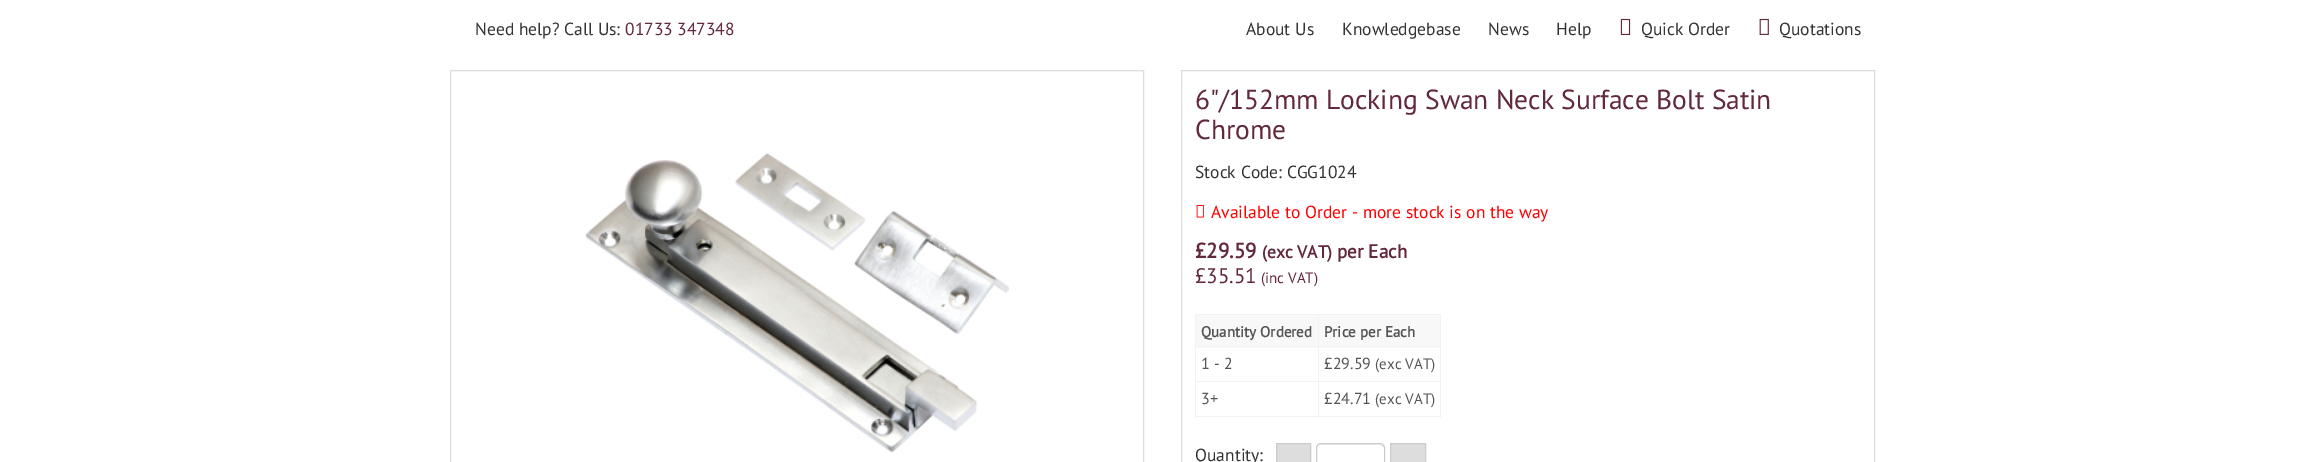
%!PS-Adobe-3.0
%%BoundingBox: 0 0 2324 462
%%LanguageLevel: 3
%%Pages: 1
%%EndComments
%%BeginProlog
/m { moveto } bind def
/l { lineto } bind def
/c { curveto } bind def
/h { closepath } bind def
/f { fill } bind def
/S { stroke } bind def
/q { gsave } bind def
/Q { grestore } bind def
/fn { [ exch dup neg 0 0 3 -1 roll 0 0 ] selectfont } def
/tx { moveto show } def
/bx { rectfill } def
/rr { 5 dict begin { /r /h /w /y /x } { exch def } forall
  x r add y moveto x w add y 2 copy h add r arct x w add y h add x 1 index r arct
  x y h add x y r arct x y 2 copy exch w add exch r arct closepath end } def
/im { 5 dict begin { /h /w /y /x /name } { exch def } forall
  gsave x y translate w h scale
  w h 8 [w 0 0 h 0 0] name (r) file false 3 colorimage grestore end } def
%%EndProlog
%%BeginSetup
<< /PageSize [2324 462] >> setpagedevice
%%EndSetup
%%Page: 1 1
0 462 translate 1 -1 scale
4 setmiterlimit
1 setgray
0 0 2324 462 bx
/PTSans-Regular 17.5 fn
0.2 setgray
(Need help? Call Us:) 475 35 tx
0.384 0.157 0.235 setrgbcolor
(01733 347348) 625 35 tx
0.2 setgray
(About Us) 1246 35 tx
(Knowledgebase) 1342 35 tx
(News) 1488 35 tx
(Help) 1556 35 tx
(image0.raw) 1620 18 11 17 im
(Quick Order) 1641 35 tx
(image1.raw) 1759 18 10 17 im
(Quotations) 1779 35 tx
0.867 setgray
450.5 70.5 693 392 rectstroke
(image2.raw) 585 153 425 300 im
1181.5 70.5 693 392 rectstroke
/PTSans-Regular 27.5 fn
0.384 0.157 0.235 setrgbcolor
(6"/152mm Locking Swan Neck Surface Bolt Satin) 1195 109 tx
(Chrome) 1195 139 tx
/PTSans-Regular 17.5 fn
0.2 setgray
(Stock Code: CGG1024) 1195 178 tx
(image3.raw) 1196 205 8 13 im
1 0 0 setrgbcolor
(Available to Order - more stock is on the way) 1211 218 tx
/PTSans-Bold 21 fn
0.384 0.157 0.235 setrgbcolor
(£29.59) 1195 258 tx
/PTSans-Bold 17.5 fn
(\(exc VAT\)) 1262 258 tx
/PTSans-Bold 19 fn
(per Each) 1337 258 tx
/PTSans-Regular 21 fn
(£35.51) 1195 283 tx
/PTSans-Regular 15 fn
(\(inc VAT\)) 1261 283 tx
0.973 setgray
1196 315 122 33 bx
0.941 0.953 0.933 setrgbcolor
1318 314 123 1 bx
0.973 setgray
1319 315 121 33 bx
0.941 0.953 0.933 setrgbcolor
1318 346 123 1 bx
1318 381 123 1 bx
1440 381 1 37 bx
1318 416 123 1 bx
1318 381 1 37 bx
1195 381 124 1 bx
1318 346 1 37 bx
1195 346 124 1 bx
1318 314 1 34 bx
1195 314 124 1 bx
1195 416 124 1 bx
1195 381 1 37 bx
1195 346 1 37 bx
1195 314 1 34 bx
/PTSans-Bold 15 fn
0.333 setgray
(Quantity Ordered) 1201 337 tx
0.941 0.953 0.933 setrgbcolor
1440 346 1 37 bx
1440 314 1 34 bx
0.333 setgray
(Price per Each) 1324 337 tx
/PTSans-Regular 16 fn
(1 - 2) 1201 369 tx
(£29.59) 1324 369 tx
/PTSans-Regular 15 fn
(\(exc VAT\)) 1375 369 tx
/PTSans-Regular 16 fn
(3+) 1201 404 tx
(£24.71) 1324 404 tx
/PTSans-Regular 15 fn
(\(exc VAT\)) 1375 404 tx
/PTSans-Regular 17.5 fn
0.2 setgray
(Quantity:) 1195 461 tx
0.867 setgray
1276.5 443.5 m 1310.5 443.5 l 1310.5 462.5 l 1276.5 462.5 l h q f Q
0.8 setgray
S
0.925 setgray
1321 445 m 1380 445 l 1382 445 1384 447 1384 449 c 1384 442 1375 444 1370 444 c 1332 444 l 1327 444 1318 442 1318 449 c 1318 447 1319 445 1321 445 c h f
0.8 setgray
1316.5 443.5 68 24 4.5 rr S
0.867 setgray
1390.5 443.5 m 1425.5 443.5 l 1425.5 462.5 l 1390.5 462.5 l h q f Q
0.8 setgray
S
showpage
%%EOF
